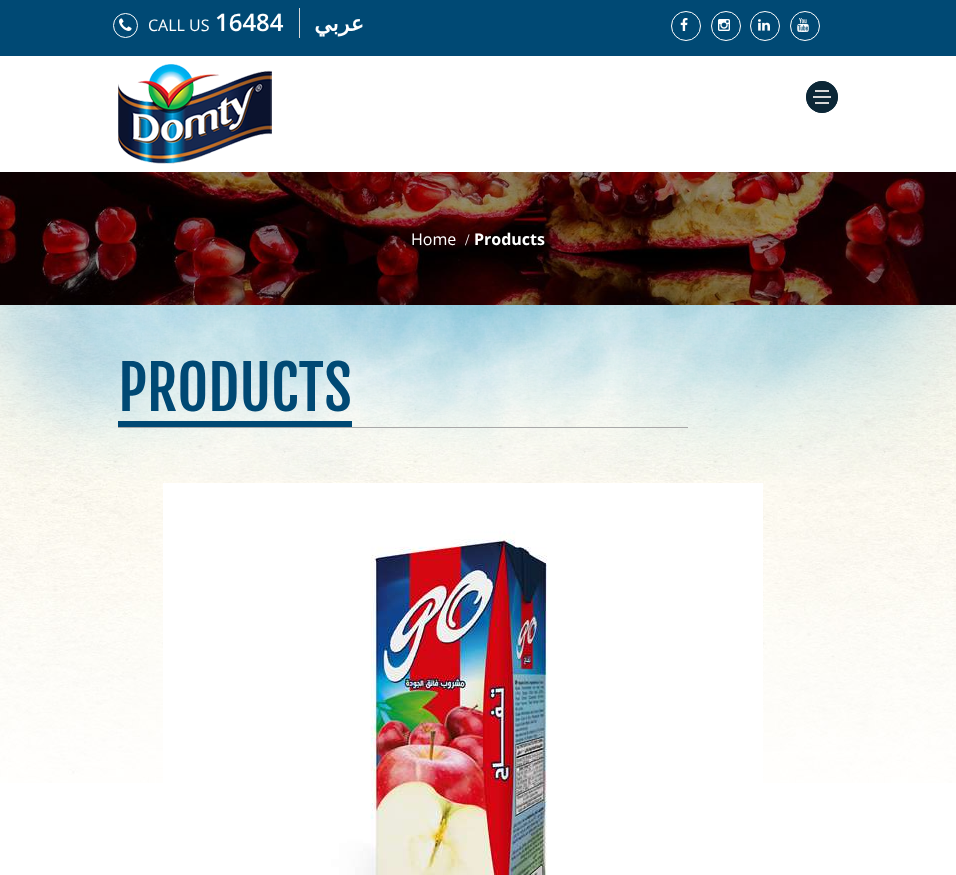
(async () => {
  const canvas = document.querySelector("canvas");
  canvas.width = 956;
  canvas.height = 875;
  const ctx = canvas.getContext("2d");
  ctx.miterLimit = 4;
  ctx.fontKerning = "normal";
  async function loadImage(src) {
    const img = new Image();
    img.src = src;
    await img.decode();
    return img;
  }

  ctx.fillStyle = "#ffffff";
  ctx.fillRect(0, 0, 956, 875);
  ctx.fillStyle = "#004974";
  ctx.fillRect(0, 0, 956, 56);
  ctx.fillStyle = "#d8d8d8";
  ctx.fillRect(299, 8, 1, 30);
  ctx.beginPath();
  ctx.arc(125.5, 25.5, 12, 0, Math.PI * 2);
  ctx.strokeStyle = "#ffffff";
  ctx.stroke();
  ctx.drawImage(await loadImage("img/1.png"), 119, 18, 13, 13);
  ctx.beginPath();
  ctx.arc(686, 26, 14.5, 0, Math.PI * 2);
  ctx.stroke();
  ctx.drawImage(await loadImage("img/2.png"), 680, 18, 8, 13);
  ctx.beginPath();
  ctx.arc(726, 26, 14.5, 0, Math.PI * 2);
  ctx.stroke();
  ctx.drawImage(await loadImage("img/3.png"), 718, 19, 12, 12);
  ctx.beginPath();
  ctx.arc(765, 26, 14.5, 0, Math.PI * 2);
  ctx.stroke();
  ctx.drawImage(await loadImage("img/4.png"), 758, 19, 12, 12);
  ctx.beginPath();
  ctx.arc(805, 26, 14.5, 0, Math.PI * 2);
  ctx.stroke();
  ctx.drawImage(await loadImage("img/5.png"), 797, 18, 12, 14);
  ctx.drawImage(await loadImage("img/6.png"), 118, 64, 154, 100);
  ctx.fillStyle = "#0c2737";
  ctx.beginPath();
  ctx.arc(822, 97, 16, 0, Math.PI * 2);
  ctx.fill();
  ctx.drawImage(await loadImage("img/7.png"), 813, 90, 18, 14);
  ctx.beginPath();
  ctx.arc(822, 97, 15.5, 0, Math.PI * 2);
  ctx.strokeStyle = "#0c2737";
  ctx.stroke();
  ctx.drawImage(await loadImage("img/8.png"), 0, 172, 956, 133);
  ctx.drawImage(await loadImage("img/9.png"), 0, 305, 956, 478);
  ctx.drawImage(await loadImage("img/10.png"), 0, 305, 956, 175);
  ctx.fillStyle = "#a8a8a8";
  ctx.fillRect(118, 427, 570, 1);
  ctx.fillStyle = "#004974";
  ctx.fillRect(118, 421, 234, 6);
  ctx.drawImage(await loadImage("img/11.png"), 163, 483, 600, 392);
  ctx.font = "16px Open Sans";
  ctx.fillStyle = "#ffffff";
  ctx.fillText("CALL US", 148, 31);
  ctx.font = "600 24px Open Sans";
  ctx.fillText("16484", 215, 31);
  ctx.direction = "rtl";
  ctx.font = "bold 22px DejaVu Sans";
  ctx.fillText("عربي", 364, 31);
  ctx.direction = "ltr";
  ctx.font = "16px Open Sans";
  ctx.fillText("Home", 411, 245);
  ctx.font = "16px Liberation Serif";
  ctx.fillText("/", 465, 245);
  ctx.font = "bold 16px Open Sans";
  ctx.fillText("Products", 474, 245);
  ctx.font = "60px Fjalla One";
  ctx.fillStyle = "#004974";
  ctx.fillText("PRODUCTS", 118, 411);
})();
